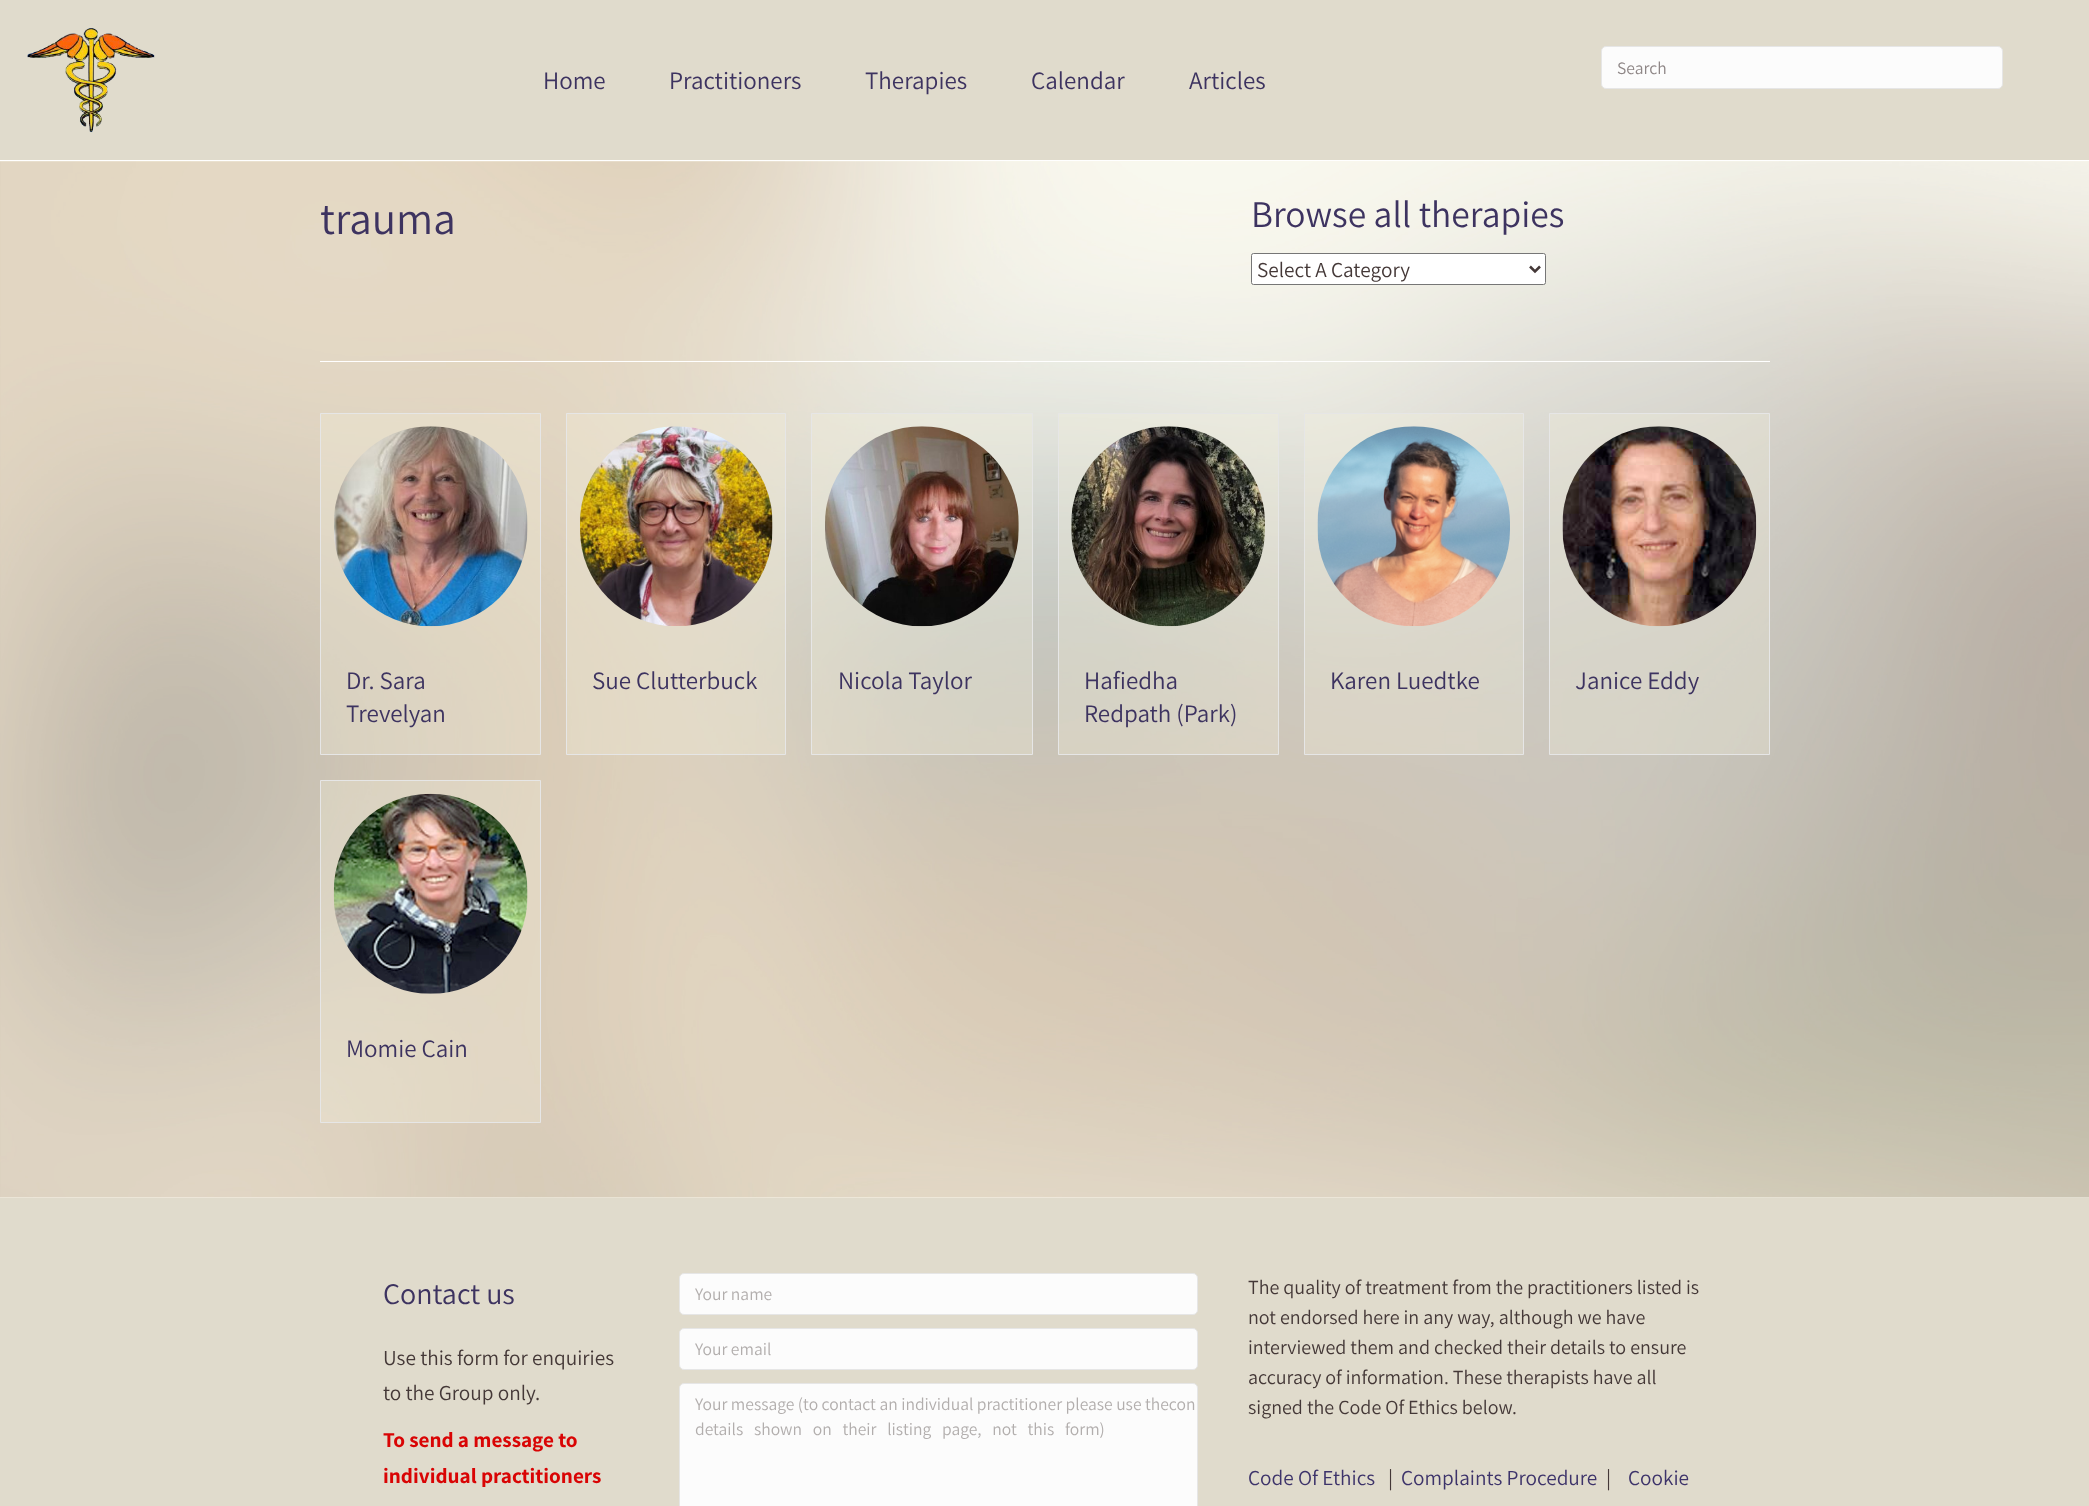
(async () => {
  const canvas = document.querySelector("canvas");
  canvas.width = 2089;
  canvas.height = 1506;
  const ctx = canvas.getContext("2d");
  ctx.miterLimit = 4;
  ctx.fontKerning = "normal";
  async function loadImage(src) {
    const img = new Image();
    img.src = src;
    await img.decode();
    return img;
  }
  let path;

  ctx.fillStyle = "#faf9ef";
  ctx.fillRect(0, 0, 2089, 1506);
  ctx.fillStyle = "#ffffff";
  ctx.fillRect(0, 160, 2089, 1);
  ctx.fillStyle = "#e0dbcc";
  ctx.fillRect(0, 0, 2089, 160);
  ctx.drawImage(await loadImage("img/1.png"), 27, 28, 128, 105);
  ctx.fillStyle = "#fcfcfc";
  ctx.beginPath();
  ctx.roundRect(1601.5, 46.5, 401, 42, 4.5);
  ctx.fill();
  ctx.strokeStyle = "#e6e6e6";
  ctx.stroke();
  ctx.drawImage(await loadImage("img/2.png"), 0, 161, 2089, 1037);
  ctx.fillStyle = "#ffffff";
  ctx.beginPath();
  ctx.roundRect(1251.5, 253.5, 294, 31, 2);
  ctx.fill();
  ctx.strokeStyle = "#767676";
  ctx.stroke();
  path = new Path2D("M1530 266.5L1535 271.5L1540 266.5");
  ctx.strokeStyle = "#443837";
  ctx.lineWidth = 2.5;
  ctx.stroke(path);
  ctx.fillRect(320, 361, 1450, 1);
  ctx.fillStyle = "rgba(244, 242, 222, 0.3)";
  ctx.beginPath();
  ctx.rect(320.5, 413.5, 220, 341);
  ctx.fill();
  ctx.strokeStyle = "#e6e6e6";
  ctx.lineWidth = 1;
  ctx.stroke();
  ctx.drawImage(await loadImage("img/3.png"), 334, 426, 194, 201);
  ctx.beginPath();
  ctx.rect(566.5, 413.5, 219, 341);
  ctx.fill();
  ctx.stroke();
  ctx.drawImage(await loadImage("img/4.png"), 580, 426, 193, 200);
  ctx.beginPath();
  ctx.rect(811.5, 413.5, 221, 341);
  ctx.fill();
  ctx.stroke();
  ctx.drawImage(await loadImage("img/5.png"), 825, 426, 194, 201);
  ctx.beginPath();
  ctx.rect(1058.5, 413.5, 220, 341);
  ctx.fill();
  ctx.stroke();
  ctx.drawImage(await loadImage("img/6.png"), 1071, 426, 194, 201);
  ctx.beginPath();
  ctx.rect(1304.5, 413.5, 219, 341);
  ctx.fill();
  ctx.stroke();
  ctx.drawImage(await loadImage("img/7.png"), 1317, 426, 193, 200);
  ctx.beginPath();
  ctx.rect(1549.5, 413.5, 220, 341);
  ctx.fill();
  ctx.stroke();
  ctx.drawImage(await loadImage("img/8.png"), 1562, 426, 195, 201);
  ctx.beginPath();
  ctx.rect(320.5, 780.5, 220, 342);
  ctx.fill();
  ctx.stroke();
  ctx.drawImage(await loadImage("img/9.png"), 333, 793, 195, 201);
  ctx.fillStyle = "#e0dbcc";
  ctx.fillRect(0, 1198, 2089, 308);
  ctx.fillStyle = "#fcfcfc";
  ctx.beginPath();
  ctx.roundRect(679.5, 1273.5, 518, 41, 4.5);
  ctx.fill();
  ctx.stroke();
  ctx.beginPath();
  ctx.roundRect(679.5, 1328.5, 518, 41, 4.5);
  ctx.fill();
  ctx.stroke();
  ctx.beginPath();
  ctx.roundRect(679.5, 1383.5, 518, 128, 4.5);
  ctx.fill();
  ctx.stroke();
  ctx.font = "17.5px Assistant";
  ctx.fillStyle = "#8e8686";
  ctx.fillText("Search", 1617, 74);
  ctx.font = "25px Assistant";
  ctx.fillStyle = "#3d3360";
  for (const [text, x, y] of [
    ["Home", 543, 89],
    ["Practitioners", 669, 89],
    ["Therapies", 865, 89],
    ["Calendar", 1031, 89],
    ["Articles", 1189, 89],
  ]) {
    ctx.fillText(text, x, y);
  }
  ctx.font = "45px Assistant";
  ctx.fillText("trauma", 320, 234);
  ctx.font = "37.5px Assistant";
  ctx.fillText("Browse all therapies", 1251, 227);
  ctx.font = "21.25px Assistant";
  ctx.fillStyle = "#443837";
  ctx.fillText("Select A Category", 1257, 277);
  ctx.font = "25px Assistant";
  ctx.fillStyle = "#3d3360";
  for (const [text, x, y] of [
    ["Dr. Sara", 346, 689],
    ["Trevelyan", 346, 722],
    ["Sue Clutterbuck", 592, 689],
    ["Nicola Taylor", 838, 689],
    ["Hafiedha", 1084, 689],
    ["Redpath (Park)", 1084, 722],
    ["Karen Luedtke", 1330, 689],
    ["Janice Eddy", 1575, 689],
    ["Momie Cain", 346, 1057],
  ]) {
    ctx.fillText(text, x, y);
  }
  ctx.font = "30px Assistant";
  ctx.fillText("Contact us", 383, 1304);
  ctx.font = "21.25px Assistant";
  ctx.fillStyle = "#443837";
  ctx.fillText("Use this form for enquiries", 383, 1365);
  ctx.fillText("to the Group only.", 383, 1400);
  ctx.font = "bold 21.25px Assistant";
  ctx.fillStyle = "#d90404";
  ctx.fillText("To send a message to", 383, 1447);
  ctx.fillText("individual practitioners", 383, 1483);
  ctx.font = "17.5px Assistant";
  ctx.fillStyle = "#b2aead";
  for (const [text, x, y] of [
    ["Your name", 695, 1300],
    ["Your email", 695, 1355],
    ["Your message (to contact an individual practitioner please use thecon", 695, 1410],
  ]) {
    ctx.fillText(text, x, y);
  }
  ctx.wordSpacing = "7.25px";
  ctx.fillText("details shown on their listing page, not this form)", 695, 1435);
  ctx.wordSpacing = "0px";
  ctx.font = "20px Assistant";
  ctx.fillStyle = "#443837";
  for (const [text, x, y] of [
    ["The quality of treatment from the practitioners listed is", 1248, 1294],
    ["not endorsed here in any way, although we have", 1248, 1324],
    ["interviewed them and checked their details to ensure", 1248, 1354],
    ["accuracy of information. These therapists have all", 1248, 1384],
    ["signed the Code Of Ethics below.", 1248, 1414],
  ]) {
    ctx.fillText(text, x, y);
  }
  ctx.font = "21.25px Assistant";
  ctx.fillStyle = "#3d336a";
  ctx.fillText("Code Of Ethics", 1248, 1485);
  ctx.fillStyle = "#443837";
  ctx.fillText("|", 1388, 1485);
  ctx.fillStyle = "#3d336a";
  ctx.fillText("Complaints Procedure", 1401, 1485);
  ctx.fillStyle = "#443837";
  ctx.fillText("|", 1606, 1485);
  ctx.fillStyle = "#3d336a";
  ctx.fillText("Cookie", 1628, 1485);
})();
